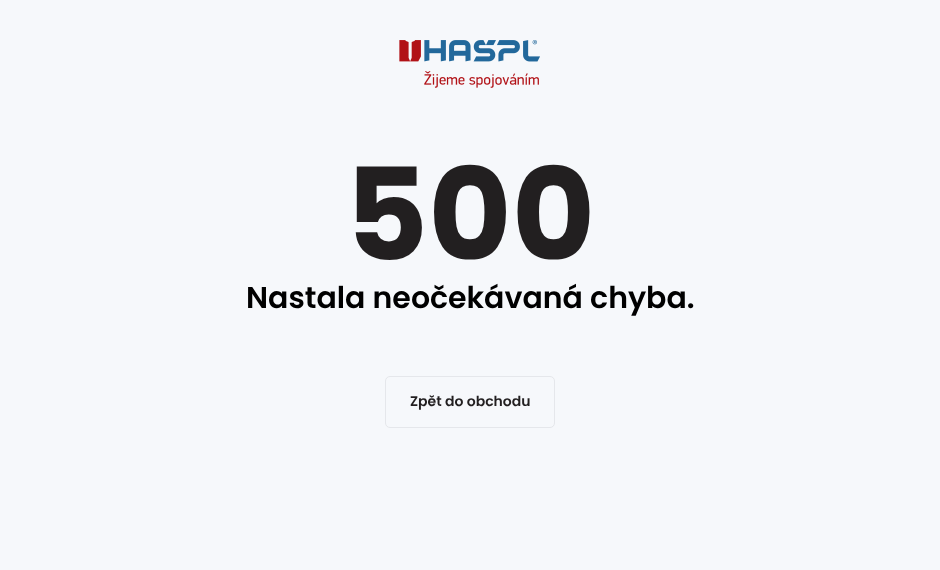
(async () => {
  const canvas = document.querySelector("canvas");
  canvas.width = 940;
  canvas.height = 570;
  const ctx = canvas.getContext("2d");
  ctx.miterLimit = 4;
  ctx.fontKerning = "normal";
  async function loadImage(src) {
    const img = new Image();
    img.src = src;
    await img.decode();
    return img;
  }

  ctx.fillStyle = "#f6f8fb";
  ctx.fillRect(0, 0, 940, 570);
  ctx.drawImage(await loadImage("img/1.png"), 399, 40, 141, 48);
  ctx.beginPath();
  ctx.roundRect(385.5, 376.5, 169, 51, 4.5);
  ctx.strokeStyle = "#e5e7eb";
  ctx.stroke();
  ctx.font = "bold 128px Poppins";
  ctx.fillStyle = "#221f20";
  ctx.fillText("500", 345, 260);
  ctx.font = "600 30px Poppins";
  ctx.fillStyle = "#000000";
  ctx.fillText("Nastala neočekávaná chyba.", 246, 308);
  ctx.font = "600 14px Poppins";
  ctx.fillStyle = "#221f20";
  ctx.fillText("Zpět do obchodu", 410, 406);
})();
